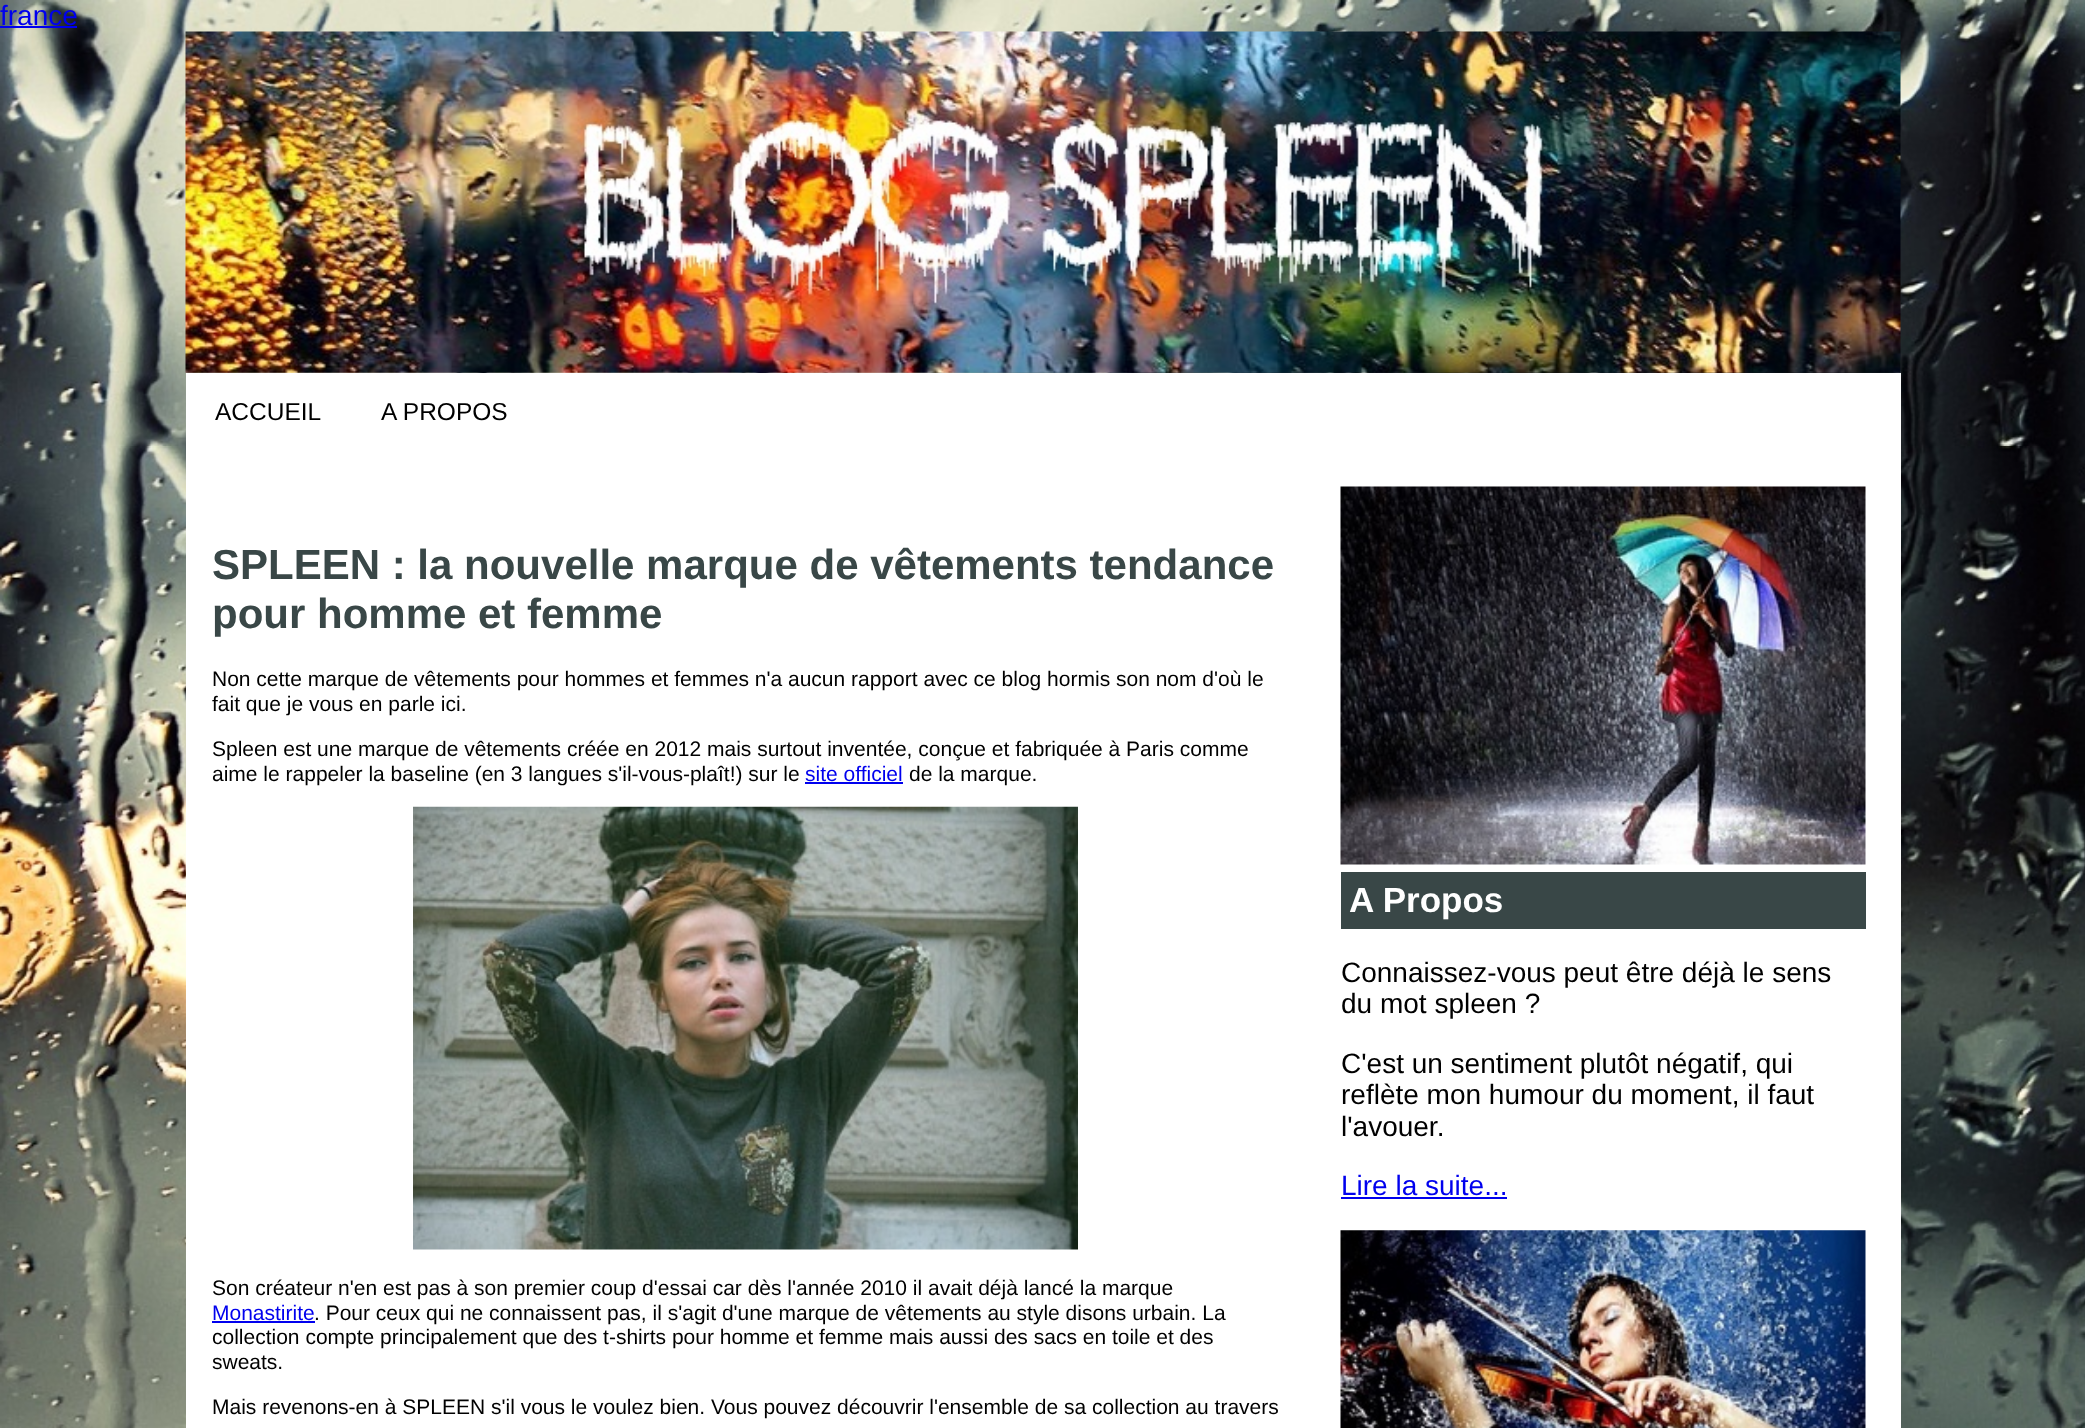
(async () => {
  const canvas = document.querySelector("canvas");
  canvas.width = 2085;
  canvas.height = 1428;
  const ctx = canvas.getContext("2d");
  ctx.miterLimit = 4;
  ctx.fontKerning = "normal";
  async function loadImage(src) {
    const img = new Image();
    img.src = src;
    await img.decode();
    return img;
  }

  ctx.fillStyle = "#ffffff";
  ctx.fillRect(0, 0, 2085, 1428);
  ctx.drawImage(await loadImage("img/1.png"), 0, 0, 2085, 1428);
  ctx.fillStyle = "#0000ee";
  ctx.fillRect(0, 26, 77, 2);
  ctx.drawImage(await loadImage("img/2.png"), 185, 31, 1716, 342);
  ctx.fillStyle = "#ffffff";
  ctx.fillRect(186, 373, 1715, 1055);
  ctx.fillStyle = "#0000ee";
  ctx.fillRect(805, 782, 98, 2);
  ctx.drawImage(await loadImage("img/3.png"), 413, 806, 665, 444);
  ctx.fillRect(212, 1321, 103, 2);
  ctx.drawImage(await loadImage("img/4.png"), 1340, 486, 526, 379);
  ctx.fillStyle = "#394747";
  ctx.fillRect(1341, 872, 525, 57);
  ctx.fillStyle = "#0000ee";
  ctx.fillRect(1341, 1197, 166, 2);
  ctx.drawImage(await loadImage("img/5.png"), 1340, 1230, 526, 198);
  ctx.font = "28px Liberation Sans";
  ctx.fillText("france", 0, 25);
  ctx.font = "24.5px Liberation Sans";
  ctx.fillStyle = "#000000";
  ctx.fillText("ACCUEIL", 215, 420);
  ctx.fillText("A PROPOS", 381, 420);
  ctx.font = "bold 42px Liberation Sans";
  ctx.fillStyle = "#394747";
  ctx.fillText("SPLEEN : la nouvelle marque de vêtements tendance", 212, 579);
  ctx.fillText("pour homme et femme", 212, 628);
  ctx.font = "21px Liberation Sans";
  ctx.fillStyle = "#000000";
  for (const [text, x, y] of [
    ["Non cette marque de vêtements pour hommes et femmes n'a aucun rapport avec ce blog hormis son nom d'où le", 212, 686],
    ["fait que je vous en parle ici.", 212, 711],
    ["Spleen est une marque de vêtements créée en 2012 mais surtout inventée, conçue et fabriquée à Paris comme", 212, 756],
    ["aime le rappeler la baseline (en 3 langues s'il-vous-plaît!) sur le", 212, 781],
  ]) {
    ctx.fillText(text, x, y);
  }
  ctx.fillStyle = "#0000ee";
  ctx.fillText("site officiel", 805, 781);
  ctx.fillStyle = "#000000";
  ctx.fillText("de la marque.", 909, 781);
  ctx.fillText("Son créateur n'en est pas à son premier coup d'essai car dès l'année 2010 il avait déjà lancé la marque", 212, 1295);
  ctx.fillStyle = "#0000ee";
  ctx.fillText("Monastirite", 212, 1320);
  ctx.fillStyle = "#000000";
  for (const [text, x, y] of [
    [". Pour ceux qui ne connaissent pas, il s'agit d'une marque de vêtements au style disons urbain. La", 314, 1320],
    ["collection compte principalement que des t-shirts pour homme et femme mais aussi des sacs en toile et des", 212, 1344],
    ["sweats.", 212, 1369],
    ["Mais revenons-en à SPLEEN s'il vous le voulez bien. Vous pouvez découvrir l'ensemble de sa collection au travers", 212, 1414],
  ]) {
    ctx.fillText(text, x, y);
  }
  ctx.font = "bold 35px Liberation Sans";
  ctx.fillStyle = "#ffffff";
  ctx.fillText("A Propos", 1349, 912);
  ctx.font = "28px Liberation Sans";
  ctx.fillStyle = "#000000";
  for (const [text, x, y] of [
    ["Connaissez-vous peut être déjà le sens", 1341, 982],
    ["du mot spleen ?", 1341, 1013],
    ["C'est un sentiment plutôt négatif, qui", 1341, 1073],
    ["reflète mon humour du moment, il faut", 1341, 1104],
    ["l'avouer.", 1341, 1136],
  ]) {
    ctx.fillText(text, x, y);
  }
  ctx.fillStyle = "#0000ee";
  ctx.fillText("Lire la suite...", 1341, 1195);
})();
